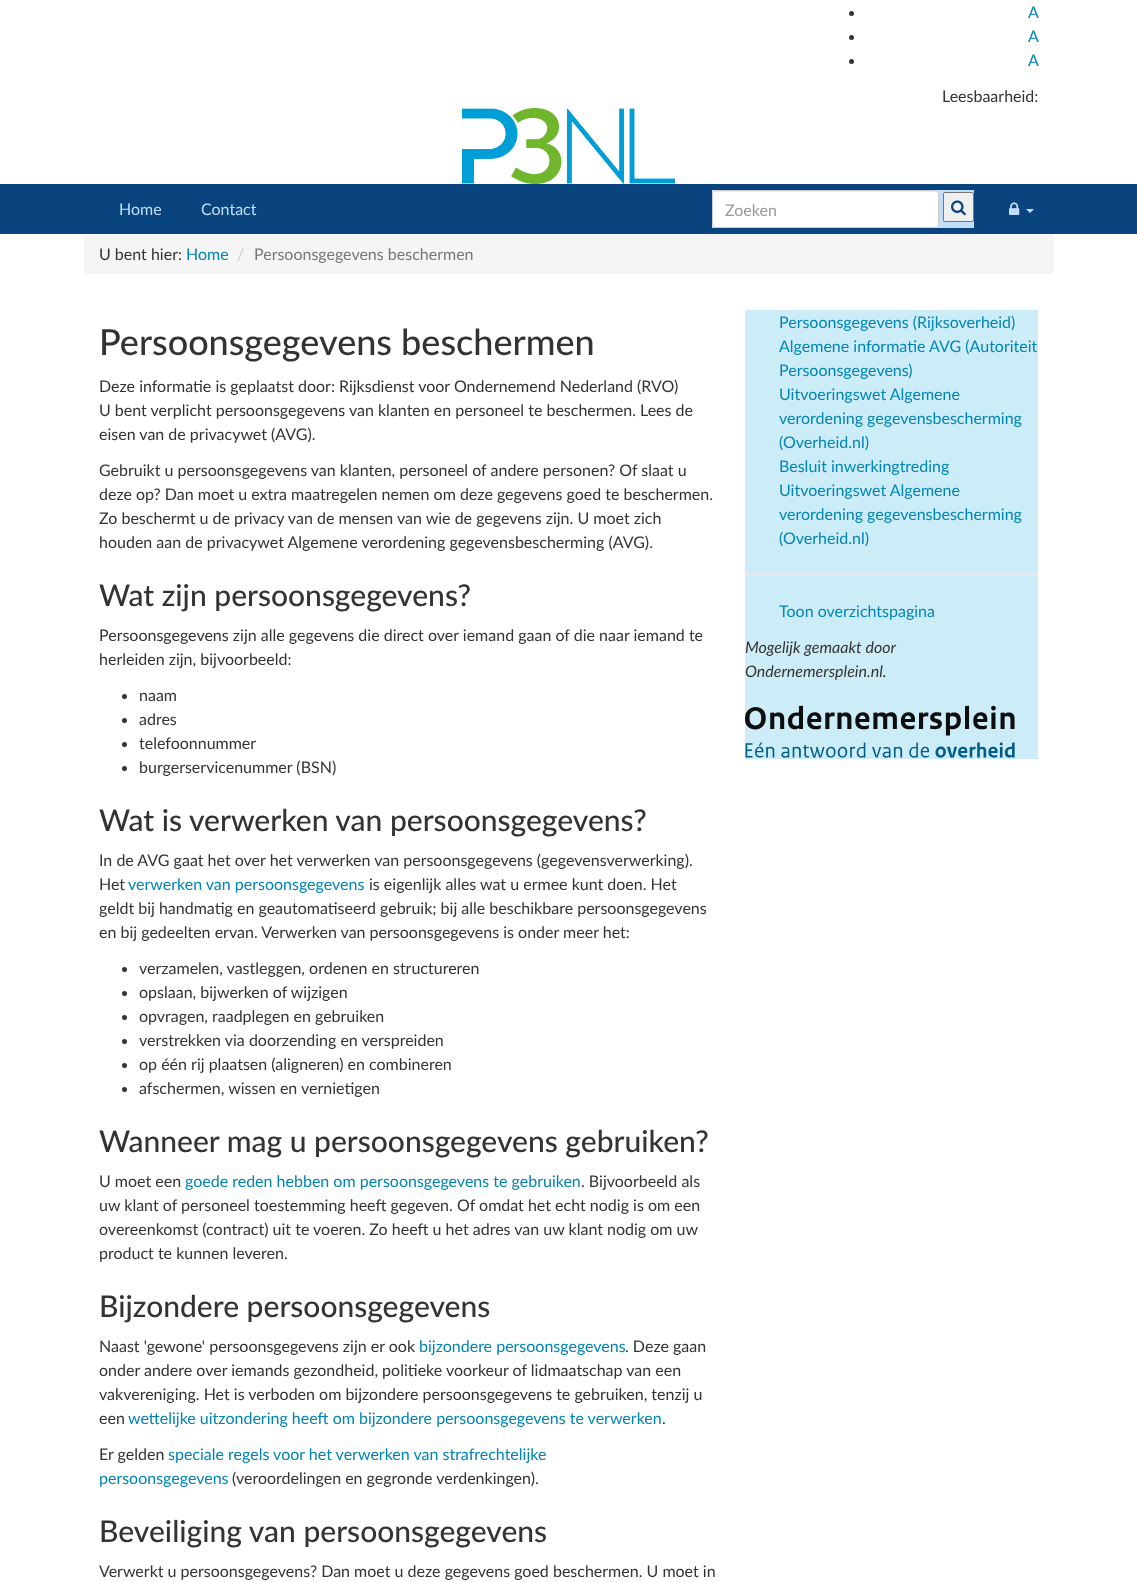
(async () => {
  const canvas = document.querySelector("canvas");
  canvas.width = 1137;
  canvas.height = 1582;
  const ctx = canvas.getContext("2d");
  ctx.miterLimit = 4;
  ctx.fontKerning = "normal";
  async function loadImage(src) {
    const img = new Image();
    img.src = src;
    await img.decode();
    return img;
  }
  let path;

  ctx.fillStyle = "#ffffff";
  ctx.fillRect(0, 0, 1137, 1582);
  ctx.fillStyle = "#333333";
  ctx.beginPath();
  ctx.arc(851.5, 13.5, 2.5, 0, Math.PI * 2);
  ctx.fill();
  ctx.beginPath();
  ctx.arc(851.5, 37.5, 2.5, 0, Math.PI * 2);
  ctx.fill();
  ctx.beginPath();
  ctx.arc(851.5, 61.5, 2.5, 0, Math.PI * 2);
  ctx.fill();
  ctx.drawImage(await loadImage("img/1.png"), 462, 108, 213, 76);
  ctx.fillStyle = "#0a447e";
  ctx.fillRect(0, 184, 1137, 50);
  ctx.fillStyle = "#c0ddfa";
  ctx.fillRect(712, 190, 262, 38);
  ctx.fillStyle = "#ffffff";
  ctx.beginPath();
  ctx.roundRect(712, 190, 227, 38, 4);
  ctx.fill();
  ctx.fillStyle = "#ececec";
  path = new Path2D("M716 192H935C937 192 938 193 938 195V194C938 192 937 191 935 191H716C714 191 713 192 713 194V195C713 193 714 192 716 192Z");
  ctx.fill(path);
  ctx.beginPath();
  ctx.roundRect(712.5, 190.5, 226, 37, 3.5);
  ctx.strokeStyle = "#cccccc";
  ctx.stroke();
  ctx.fillStyle = "#efefef";
  ctx.beginPath();
  ctx.roundRect(943.5, 192.5, 30, 29, 1.5);
  ctx.fill();
  ctx.strokeStyle = "#767676";
  ctx.stroke();
  ctx.drawImage(await loadImage("img/2.png"), 951, 200, 15, 16);
  ctx.drawImage(await loadImage("img/3.png"), 1009, 202, 11, 13);
  ctx.fillStyle = "#c0ddfa";
  path = new Path2D("M1026 209H1034L1030 213Z");
  ctx.fill(path);
  ctx.fillStyle = "#f5f5f5";
  ctx.beginPath();
  ctx.roundRect(84, 234, 970, 40, 4);
  ctx.fill();
  ctx.fillStyle = "#333333";
  ctx.beginPath();
  ctx.arc(124.5, 696.5, 2.5, 0, Math.PI * 2);
  ctx.fill();
  ctx.beginPath();
  ctx.arc(124.5, 720.5, 2.5, 0, Math.PI * 2);
  ctx.fill();
  ctx.beginPath();
  ctx.arc(124.5, 744.5, 2.5, 0, Math.PI * 2);
  ctx.fill();
  ctx.beginPath();
  ctx.arc(124.5, 768.5, 2.5, 0, Math.PI * 2);
  ctx.fill();
  ctx.beginPath();
  ctx.arc(124.5, 969.5, 2.5, 0, Math.PI * 2);
  ctx.fill();
  ctx.beginPath();
  ctx.arc(124.5, 993.5, 2.5, 0, Math.PI * 2);
  ctx.fill();
  ctx.beginPath();
  ctx.arc(124.5, 1017.5, 2.5, 0, Math.PI * 2);
  ctx.fill();
  ctx.beginPath();
  ctx.arc(124.5, 1041.5, 2.5, 0, Math.PI * 2);
  ctx.fill();
  ctx.beginPath();
  ctx.arc(124.5, 1065.5, 2.5, 0, Math.PI * 2);
  ctx.fill();
  ctx.beginPath();
  ctx.arc(124.5, 1089.5, 2.5, 0, Math.PI * 2);
  ctx.fill();
  ctx.fillStyle = "#ccecf7";
  ctx.fillRect(745, 310, 293, 449);
  ctx.fillStyle = "#eeeeee";
  ctx.fillRect(745, 574, 293, 1);
  ctx.drawImage(await loadImage("img/4.png"), 745, 705, 270, 53);
  ctx.font = "16px Lato";
  ctx.fillStyle = "#0086b6";
  for (const [text, x, y] of [
    ["A", 1028, 18],
    ["A", 1028, 42],
    ["A", 1028, 66],
  ]) {
    ctx.fillText(text, x, y);
  }
  ctx.fillStyle = "#333333";
  ctx.fillText("Leesbaarheid:", 942, 102);
  ctx.fillStyle = "#c0ddfa";
  ctx.fillText("Home", 119, 215);
  ctx.fillText("Contact", 201, 215);
  ctx.fillStyle = "#999999";
  ctx.fillText("Zoeken", 725, 216);
  ctx.fillStyle = "#333333";
  ctx.fillText("U bent hier:", 99, 260);
  ctx.fillStyle = "#0086b6";
  ctx.fillText("Home", 186, 260);
  ctx.fillStyle = "#cccccc";
  ctx.fillText("/", 237, 260);
  ctx.fillStyle = "#777777";
  ctx.fillText("Persoonsgegevens beschermen", 254, 260);
  ctx.font = "500 36px Lato";
  ctx.fillStyle = "#333333";
  ctx.fillText("Persoonsgegevens beschermen", 99, 355);
  ctx.font = "16px Lato";
  for (const [text, x, y] of [
    ["Deze informatie is geplaatst door: Rijksdienst voor Ondernemend Nederland (RVO)", 99, 392],
    ["U bent verplicht persoonsgegevens van klanten en personeel te beschermen. Lees de", 99, 416],
    ["eisen van de privacywet (AVG).", 99, 440],
    ["Gebruikt u persoonsgegevens van klanten, personeel of andere personen? Of slaat u", 99, 476],
    ["deze op? Dan moet u extra maatregelen nemen om deze gegevens goed te beschermen.", 99, 500],
    ["Zo beschermt u de privacy van de mensen van wie de gegevens zijn. U moet zich", 99, 524],
    ["houden aan de privacywet Algemene verordening gegevensbescherming (AVG).", 99, 548],
  ]) {
    ctx.fillText(text, x, y);
  }
  ctx.font = "500 30px Lato";
  ctx.fillText("Wat zijn persoonsgegevens?", 99, 606);
  ctx.font = "16px Lato";
  for (const [text, x, y] of [
    ["Persoonsgegevens zijn alle gegevens die direct over iemand gaan of die naar iemand te", 99, 641],
    ["herleiden zijn, bijvoorbeeld:", 99, 665],
    ["naam", 139, 701],
    ["adres", 139, 725],
    ["telefoonnummer", 139, 749],
    ["burgerservicenummer (BSN)", 139, 773],
  ]) {
    ctx.fillText(text, x, y);
  }
  ctx.font = "500 30px Lato";
  ctx.fillText("Wat is verwerken van persoonsgegevens?", 99, 831);
  ctx.font = "16px Lato";
  ctx.fillText("In de AVG gaat het over het verwerken van persoonsgegevens (gegevensverwerking).", 99, 866);
  ctx.fillText("Het", 99, 890);
  ctx.fillStyle = "#0086b6";
  ctx.fillText("verwerken van persoonsgegevens", 128, 890);
  ctx.fillStyle = "#333333";
  for (const [text, x, y] of [
    ["is eigenlijk alles wat u ermee kunt doen. Het", 369, 890],
    ["geldt bij handmatig en geautomatiseerd gebruik; bij alle beschikbare persoonsgegevens", 99, 914],
    ["en bij gedeelten ervan. Verwerken van persoonsgegevens is onder meer het:", 99, 938],
    ["verzamelen, vastleggen, ordenen en structureren", 139, 974],
    ["opslaan, bijwerken of wijzigen", 139, 998],
    ["opvragen, raadplegen en gebruiken", 139, 1022],
    ["verstrekken via doorzending en verspreiden", 139, 1046],
    ["op één rij plaatsen (aligneren) en combineren", 139, 1070],
    ["afschermen, wissen en vernietigen", 139, 1094],
  ]) {
    ctx.fillText(text, x, y);
  }
  ctx.font = "500 30px Lato";
  ctx.fillText("Wanneer mag u persoonsgegevens gebruiken?", 99, 1152);
  ctx.font = "16px Lato";
  ctx.fillText("U moet een", 99, 1187);
  ctx.fillStyle = "#0086b6";
  ctx.fillText("goede reden hebben om persoonsgegevens te gebruiken", 185, 1187);
  ctx.fillStyle = "#333333";
  for (const [text, x, y] of [
    [". Bijvoorbeeld als", 581, 1187],
    ["uw klant of personeel toestemming heeft gegeven. Of omdat het echt nodig is om een", 99, 1211],
    ["overeenkomst (contract) uit te voeren. Zo heeft u het adres van uw klant nodig om uw", 99, 1235],
    ["product te kunnen leveren.", 99, 1259],
  ]) {
    ctx.fillText(text, x, y);
  }
  ctx.font = "500 30px Lato";
  ctx.fillText("Bijzondere persoonsgegevens", 99, 1317);
  ctx.font = "16px Lato";
  ctx.fillText("Naast 'gewone' persoonsgegevens zijn er ook", 99, 1352);
  ctx.fillStyle = "#0086b6";
  ctx.fillText("bijzondere persoonsgegevens", 419, 1352);
  ctx.fillStyle = "#333333";
  for (const [text, x, y] of [
    [". Deze gaan", 625, 1352],
    ["onder andere over iemands gezondheid, politieke voorkeur of lidmaatschap van een", 99, 1376],
    ["vakvereniging. Het is verboden om bijzondere persoonsgegevens te gebruiken, tenzij u", 99, 1400],
    ["een", 99, 1424],
  ]) {
    ctx.fillText(text, x, y);
  }
  ctx.fillStyle = "#0086b6";
  ctx.fillText("wettelijke uitzondering heeft om bijzondere persoonsgegevens te verwerken", 128, 1424);
  ctx.fillStyle = "#333333";
  ctx.fillText(".", 662, 1424);
  ctx.fillText("Er gelden", 99, 1460);
  ctx.fillStyle = "#0086b6";
  ctx.fillText("speciale regels voor het verwerken van strafrechtelijke", 168, 1460);
  ctx.fillText("persoonsgegevens", 99, 1484);
  ctx.fillStyle = "#333333";
  ctx.fillText("(veroordelingen en gegronde verdenkingen).", 232, 1484);
  ctx.font = "500 30px Lato";
  ctx.fillText("Beveiliging van persoonsgegevens", 99, 1542);
  ctx.font = "16px Lato";
  ctx.fillText("Verwerkt u persoonsgegevens? Dan moet u deze gegevens goed beschermen. U moet in", 99, 1577);
  ctx.fillStyle = "#0086b6";
  for (const [text, x, y] of [
    ["Persoonsgegevens (Rijksoverheid)", 779, 328],
    ["Algemene informatie AVG (Autoriteit", 779, 352],
    ["Persoonsgegevens)", 779, 376],
    ["Uitvoeringswet Algemene", 779, 400],
    ["verordening gegevensbescherming", 779, 424],
    ["(Overheid.nl)", 779, 448],
    ["Besluit inwerkingtreding", 779, 472],
    ["Uitvoeringswet Algemene", 779, 496],
    ["verordening gegevensbescherming", 779, 520],
    ["(Overheid.nl)", 779, 544],
    ["Toon overzichtspagina", 779, 617],
  ]) {
    ctx.fillText(text, x, y);
  }
  ctx.font = "italic 16px Lato";
  ctx.fillStyle = "#333333";
  ctx.fillText("Mogelijk gemaakt door", 745, 653);
  ctx.fillText("Ondernemersplein.nl.", 745, 677);
})();
